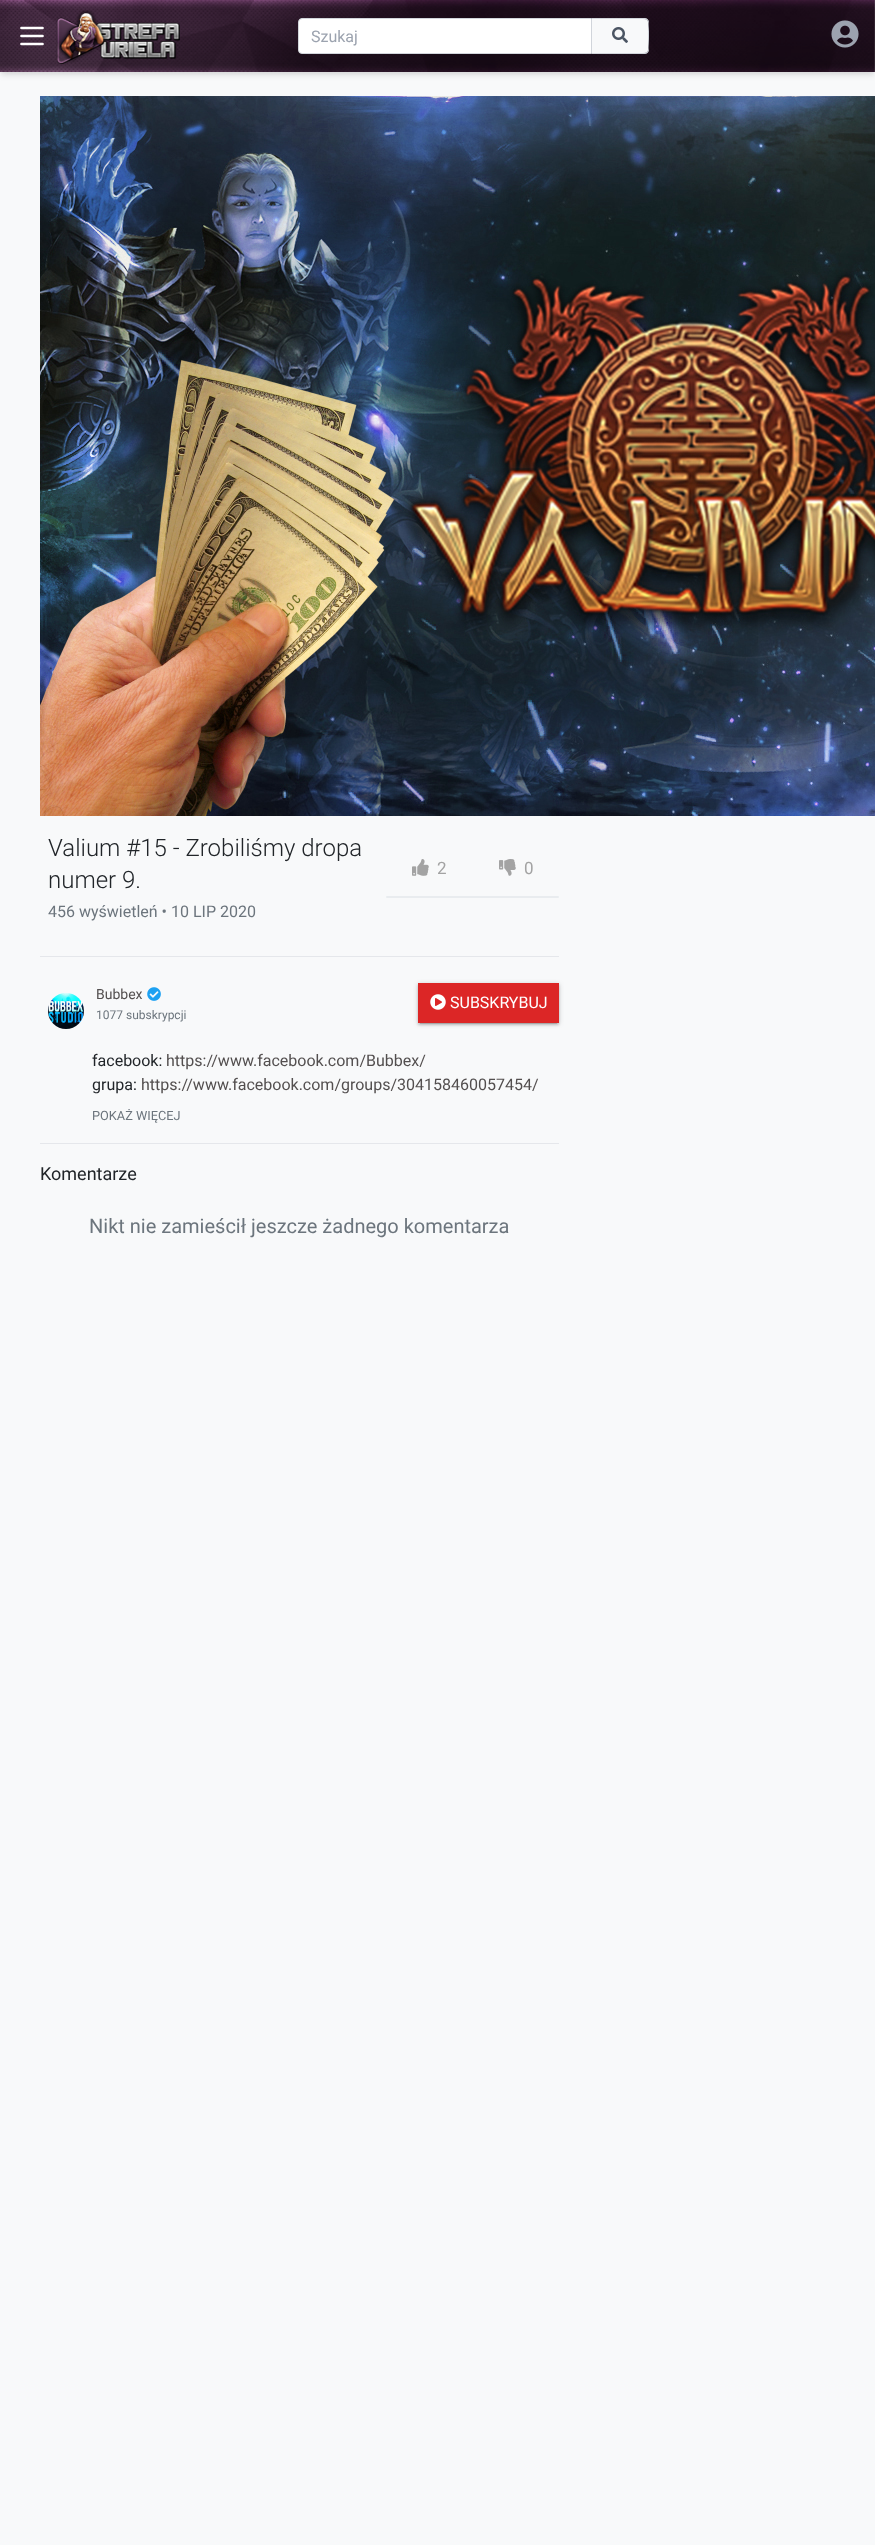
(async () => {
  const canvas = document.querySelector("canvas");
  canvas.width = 875;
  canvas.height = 2545;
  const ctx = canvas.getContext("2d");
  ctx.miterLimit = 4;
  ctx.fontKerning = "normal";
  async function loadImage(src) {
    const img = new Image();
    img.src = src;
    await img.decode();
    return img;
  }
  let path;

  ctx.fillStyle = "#f8f9fa";
  ctx.fillRect(0, 0, 875, 2545);
  ctx.fillStyle = "rgba(0, 0, 0, 0.06)";
  ctx.filter = "blur(2px)";
  ctx.beginPath();
  ctx.rect(1, 3, 873, 70);
  ctx.fill();
  ctx.filter = "none";
  ctx.fillStyle = "rgba(0, 0, 0, 0.1)";
  ctx.filter = "blur(3px)";
  ctx.beginPath();
  ctx.rect(1, 5, 873, 70);
  ctx.fill();
  ctx.filter = "none";
  ctx.drawImage(await loadImage("img/1.png"), 0, 0, 875, 72);
  path = new Path2D("M21.5 28H42.5M21.5 36H42.5M21.5 44H42.5");
  ctx.strokeStyle = "#ffffff";
  ctx.lineWidth = 2.7;
  ctx.lineCap = "round";
  ctx.lineJoin = "round";
  ctx.stroke(path);
  ctx.drawImage(await loadImage("img/2.png"), 56, 10, 124, 54);
  ctx.fillStyle = "#ffffff";
  ctx.beginPath();
  ctx.roundRect(298.5, 18.5, 293, 35, [3.5, 0, 0, 3.5]);
  ctx.fill();
  ctx.strokeStyle = "#d1d5db";
  ctx.lineWidth = 1;
  ctx.lineJoin = "miter";
  ctx.stroke();
  ctx.fillStyle = "#f8f9fa";
  ctx.beginPath();
  ctx.roundRect(592, 19, 56, 34, [0, 3, 3, 0]);
  ctx.fill();
  ctx.fillStyle = "#d1d5db";
  path = new Path2D("M592 18H645C647 18 649 20 649 22V50C649 52 647 54 645 54H592ZM592 19H636C652 19 648 19 648 36C648 53 652 53 636 53H592Z");
  ctx.fill(path, "evenodd");
  ctx.drawImage(await loadImage("img/3.png"), 612, 27, 16, 16);
  ctx.drawImage(await loadImage("img/4.png"), 831, 20, 28, 28);
  ctx.drawImage(await loadImage("img/5.png"), 40, 96, 835, 720);
  ctx.drawImage(await loadImage("img/6.png"), 412, 859, 17, 17);
  ctx.drawImage(await loadImage("img/7.png"), 499, 859, 17, 17);
  ctx.fillStyle = "#e9ecef";
  ctx.beginPath();
  ctx.roundRect(386, 896, 173, 2, 1);
  ctx.fill();
  ctx.fillStyle = "#e5e7eb";
  ctx.fillRect(40, 956, 519, 1);
  ctx.drawImage(await loadImage("img/8.png"), 48, 993, 36, 36);
  ctx.drawImage(await loadImage("img/9.png"), 147, 987, 14, 14);
  ctx.fillStyle = "rgba(0, 0, 0, 0.2)";
  ctx.filter = "blur(2.5px)";
  ctx.beginPath();
  ctx.rect(418, 984, 141, 40);
  ctx.fill();
  ctx.filter = "none";
  ctx.fillStyle = "rgba(0, 0, 0, 0.12)";
  ctx.filter = "blur(0.5px)";
  ctx.beginPath();
  ctx.rect(420, 988, 137, 36);
  ctx.fill();
  ctx.filter = "none";
  ctx.fillStyle = "rgba(0, 0, 0, 0.14)";
  ctx.filter = "blur(1px)";
  ctx.beginPath();
  ctx.rect(418, 985, 141, 40);
  ctx.fill();
  ctx.filter = "none";
  ctx.fillStyle = "#dc2626";
  ctx.fillRect(418, 983, 141, 40);
  ctx.drawImage(await loadImage("img/10.png"), 430, 994, 16, 16);
  ctx.fillStyle = "#e5e7eb";
  ctx.fillRect(40, 1143, 519, 1);
  ctx.font = "16px Roboto";
  ctx.fillStyle = "#9ca3af";
  ctx.fillText("Szukaj", 311, 42);
  ctx.font = "300 24px Roboto";
  ctx.fillStyle = "#212529";
  ctx.fillText("Valium #15 - Zrobiliśmy dropa", 48, 856);
  ctx.fillText("numer 9.", 48, 888);
  ctx.font = "16px Roboto";
  ctx.fillStyle = "#6c757d";
  ctx.fillText("456 wyświetleń • 10 LIP 2020", 48, 917);
  ctx.font = "17px Roboto";
  ctx.fillStyle = "#a3a3a3";
  ctx.fillText("2", 437, 874);
  ctx.fillText("0", 524, 874);
  ctx.font = "14px Roboto";
  ctx.fillStyle = "#534f4f";
  ctx.fillText("Bubbex", 96, 999);
  ctx.font = "12px Roboto";
  ctx.fillStyle = "#6c757d";
  ctx.fillText("1077 subskrypcji", 96, 1019);
  ctx.font = "16px Roboto";
  ctx.fillStyle = "#ffffff";
  ctx.fillText("SUBSKRYBUJ", 450, 1008);
  ctx.fillStyle = "#212529";
  ctx.fillText("facebook:", 92, 1066);
  ctx.fillStyle = "#534f4f";
  ctx.fillText("https://www.facebook.com/Bubbex/", 166, 1066);
  ctx.fillStyle = "#212529";
  ctx.fillText("grupa:", 92, 1090);
  ctx.fillStyle = "#534f4f";
  ctx.fillText("https://www.facebook.com/groups/304158460057454/", 141, 1090);
  ctx.font = "12.75px Roboto";
  ctx.fillStyle = "#6c757d";
  ctx.fillText("POKAŻ WIĘCEJ", 92, 1120);
  ctx.font = "18px Roboto";
  ctx.fillStyle = "#212529";
  ctx.fillText("Komentarze", 40, 1180);
  ctx.font = "20px Roboto";
  ctx.fillStyle = "#6c757d";
  ctx.fillText("Nikt nie zamieścił jeszcze żadnego komentarza", 89, 1233);
})();
